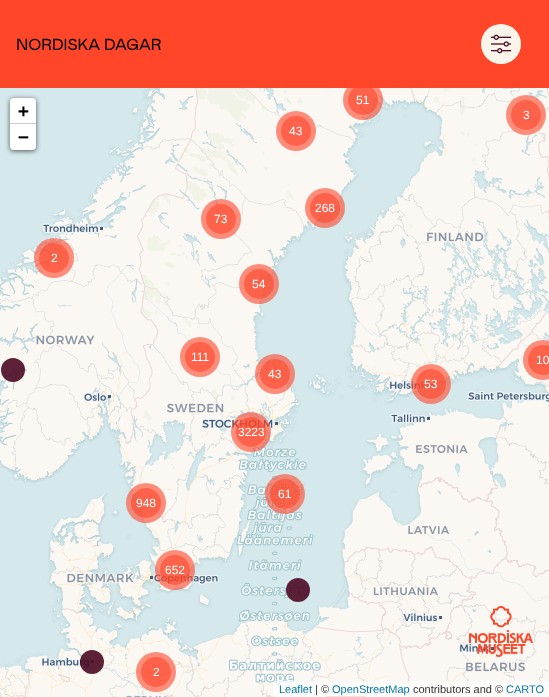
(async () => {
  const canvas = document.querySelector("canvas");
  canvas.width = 549;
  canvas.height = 697;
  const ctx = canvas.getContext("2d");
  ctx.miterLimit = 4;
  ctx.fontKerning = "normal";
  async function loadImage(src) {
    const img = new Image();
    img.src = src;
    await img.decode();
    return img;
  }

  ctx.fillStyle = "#ff4629";
  ctx.fillRect(0, 0, 549, 697);
  ctx.fillStyle = "#faf5eb";
  ctx.beginPath();
  ctx.arc(501, 44, 20, 0, Math.PI * 2);
  ctx.fill();
  ctx.drawImage(await loadImage("img/1.png"), 491, 34, 20, 20);
  ctx.drawImage(await loadImage("img/2.png"), 0, 88, 121, 230);
  ctx.drawImage(await loadImage("img/3.png"), 121, 88, 256, 230);
  ctx.drawImage(await loadImage("img/4.png"), 377, 88, 172, 230);
  ctx.drawImage(await loadImage("img/5.png"), 0, 318, 121, 256);
  ctx.drawImage(await loadImage("img/6.png"), 121, 318, 256, 256);
  ctx.drawImage(await loadImage("img/7.png"), 377, 318, 172, 256);
  ctx.drawImage(await loadImage("img/8.png"), 0, 574, 121, 123);
  ctx.drawImage(await loadImage("img/9.png"), 121, 574, 256, 123);
  ctx.drawImage(await loadImage("img/10.png"), 377, 574, 172, 123);
  ctx.save();
  ctx.beginPath();
  ctx.rect(0, 88, 549, 609);
  ctx.clip();
  ctx.fillStyle = "rgba(255, 70, 41, 0.6)";
  ctx.beginPath();
  ctx.arc(363, 100, 20, 0, Math.PI * 2);
  ctx.fill();
  ctx.beginPath();
  ctx.arc(363, 100, 15, 0, Math.PI * 2);
  ctx.fill();
  ctx.restore();
  ctx.fillStyle = "rgba(255, 70, 41, 0.6)";
  ctx.beginPath();
  ctx.arc(526, 115, 20, 0, Math.PI * 2);
  ctx.fill();
  ctx.beginPath();
  ctx.arc(526, 115, 15, 0, Math.PI * 2);
  ctx.fill();
  ctx.beginPath();
  ctx.arc(296, 131, 20, 0, Math.PI * 2);
  ctx.fill();
  ctx.beginPath();
  ctx.arc(296, 131, 15, 0, Math.PI * 2);
  ctx.fill();
  ctx.beginPath();
  ctx.arc(325, 208, 20, 0, Math.PI * 2);
  ctx.fill();
  ctx.beginPath();
  ctx.arc(325, 208, 15, 0, Math.PI * 2);
  ctx.fill();
  ctx.beginPath();
  ctx.arc(221, 219, 20, 0, Math.PI * 2);
  ctx.fill();
  ctx.beginPath();
  ctx.arc(221, 219, 15, 0, Math.PI * 2);
  ctx.fill();
  ctx.beginPath();
  ctx.arc(54, 258, 20, 0, Math.PI * 2);
  ctx.fill();
  ctx.beginPath();
  ctx.arc(54, 258, 15, 0, Math.PI * 2);
  ctx.fill();
  ctx.beginPath();
  ctx.arc(259, 284, 20, 0, Math.PI * 2);
  ctx.fill();
  ctx.beginPath();
  ctx.arc(259, 284, 15, 0, Math.PI * 2);
  ctx.fill();
  ctx.fillStyle = "rgba(75, 10, 35, 0.9)";
  ctx.beginPath();
  ctx.arc(13, 370, 12, 0, Math.PI * 2);
  ctx.fill();
  ctx.fillStyle = "rgba(255, 70, 41, 0.6)";
  ctx.beginPath();
  ctx.arc(200, 357, 20, 0, Math.PI * 2);
  ctx.fill();
  ctx.beginPath();
  ctx.arc(200, 357, 15, 0, Math.PI * 2);
  ctx.fill();
  ctx.beginPath();
  ctx.arc(275, 374, 20, 0, Math.PI * 2);
  ctx.fill();
  ctx.beginPath();
  ctx.arc(275, 374, 15, 0, Math.PI * 2);
  ctx.fill();
  ctx.beginPath();
  ctx.arc(543, 360, 20, 0, Math.PI * 2);
  ctx.fill();
  ctx.beginPath();
  ctx.arc(543, 360, 15, 0, Math.PI * 2);
  ctx.fill();
  ctx.beginPath();
  ctx.arc(431, 384, 20, 0, Math.PI * 2);
  ctx.fill();
  ctx.beginPath();
  ctx.arc(431, 384, 15, 0, Math.PI * 2);
  ctx.fill();
  ctx.beginPath();
  ctx.arc(251, 432, 20, 0, Math.PI * 2);
  ctx.fill();
  ctx.beginPath();
  ctx.arc(251, 432, 15, 0, Math.PI * 2);
  ctx.fill();
  ctx.beginPath();
  ctx.arc(285, 494, 20, 0, Math.PI * 2);
  ctx.fill();
  ctx.beginPath();
  ctx.arc(285, 494, 15, 0, Math.PI * 2);
  ctx.fill();
  ctx.beginPath();
  ctx.arc(146, 503, 20, 0, Math.PI * 2);
  ctx.fill();
  ctx.beginPath();
  ctx.arc(146, 503, 15, 0, Math.PI * 2);
  ctx.fill();
  ctx.beginPath();
  ctx.arc(175, 570, 20, 0, Math.PI * 2);
  ctx.fill();
  ctx.beginPath();
  ctx.arc(175, 570, 15, 0, Math.PI * 2);
  ctx.fill();
  ctx.fillStyle = "rgba(75, 10, 35, 0.9)";
  ctx.beginPath();
  ctx.arc(298, 590, 12, 0, Math.PI * 2);
  ctx.fill();
  ctx.beginPath();
  ctx.arc(92, 662, 12, 0, Math.PI * 2);
  ctx.fill();
  ctx.fillStyle = "rgba(255, 70, 41, 0.6)";
  ctx.beginPath();
  ctx.arc(156, 672, 20, 0, Math.PI * 2);
  ctx.fill();
  ctx.beginPath();
  ctx.arc(156, 672, 15, 0, Math.PI * 2);
  ctx.fill();
  ctx.fillStyle = "#fd8d7a";
  ctx.beginPath();
  ctx.roundRect(326, 696, 40, 1, [20, 20, 0, 0]);
  ctx.fill();
  ctx.fillStyle = "rgba(0, 0, 0, 0.65)";
  ctx.filter = "blur(2.5px)";
  ctx.beginPath();
  ctx.roundRect(10, 99, 26, 52, 4);
  ctx.fill();
  ctx.filter = "none";
  ctx.fillStyle = "#ffffff";
  ctx.beginPath();
  ctx.roundRect(10, 98, 26, 25, [4, 4, 0, 0]);
  ctx.fill();
  ctx.fillStyle = "#cccccc";
  ctx.fillRect(10, 123, 26, 1);
  ctx.fillStyle = "#ffffff";
  ctx.beginPath();
  ctx.roundRect(10, 124, 26, 26, [0, 0, 4, 4]);
  ctx.fill();
  ctx.fillStyle = "rgba(255, 255, 255, 0.7)";
  ctx.fillRect(274, 681, 275, 16);
  ctx.drawImage(await loadImage("img/11.png"), 469, 606, 64, 51);
  ctx.font = "16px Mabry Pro";
  ctx.fillStyle = "#000000";
  ctx.fillText("NORDISKA DAGAR", 16, 50);
  ctx.font = "12px Liberation Sans";
  ctx.fillStyle = "#ffffff";
  for (const [text, x, y] of [
    ["51", 356, 104],
    ["3", 523, 119],
    ["43", 289, 135],
    ["268", 315, 212],
    ["73", 214, 223],
    ["2", 51, 262],
    ["54", 252, 288],
    ["111", 191, 361],
    ["43", 268, 378],
    ["10", 536, 364],
    ["53", 424, 388],
    ["3223", 238, 436],
    ["61", 278, 498],
    ["948", 136, 507],
    ["652", 165, 574],
    ["2", 153, 676],
  ]) {
    ctx.fillText(text, x, y);
  }
  ctx.font = "bold 18px DejaVu Sans Mono";
  ctx.fillStyle = "#000000";
  ctx.fillText("+", 18, 117);
  ctx.fillText("−", 18, 143);
  ctx.font = "11px Liberation Sans";
  ctx.fillStyle = "#0078a8";
  ctx.fillText("Leaflet", 279, 693);
  ctx.fillStyle = "#333333";
  ctx.fillText("| ©", 315, 693);
  ctx.fillStyle = "#0078a8";
  ctx.fillText("OpenStreetMap", 332, 693);
  ctx.fillStyle = "#333333";
  ctx.fillText("contributors and ©", 413, 693);
  ctx.fillStyle = "#0078a8";
  ctx.fillText("CARTO", 506, 693);
})();
